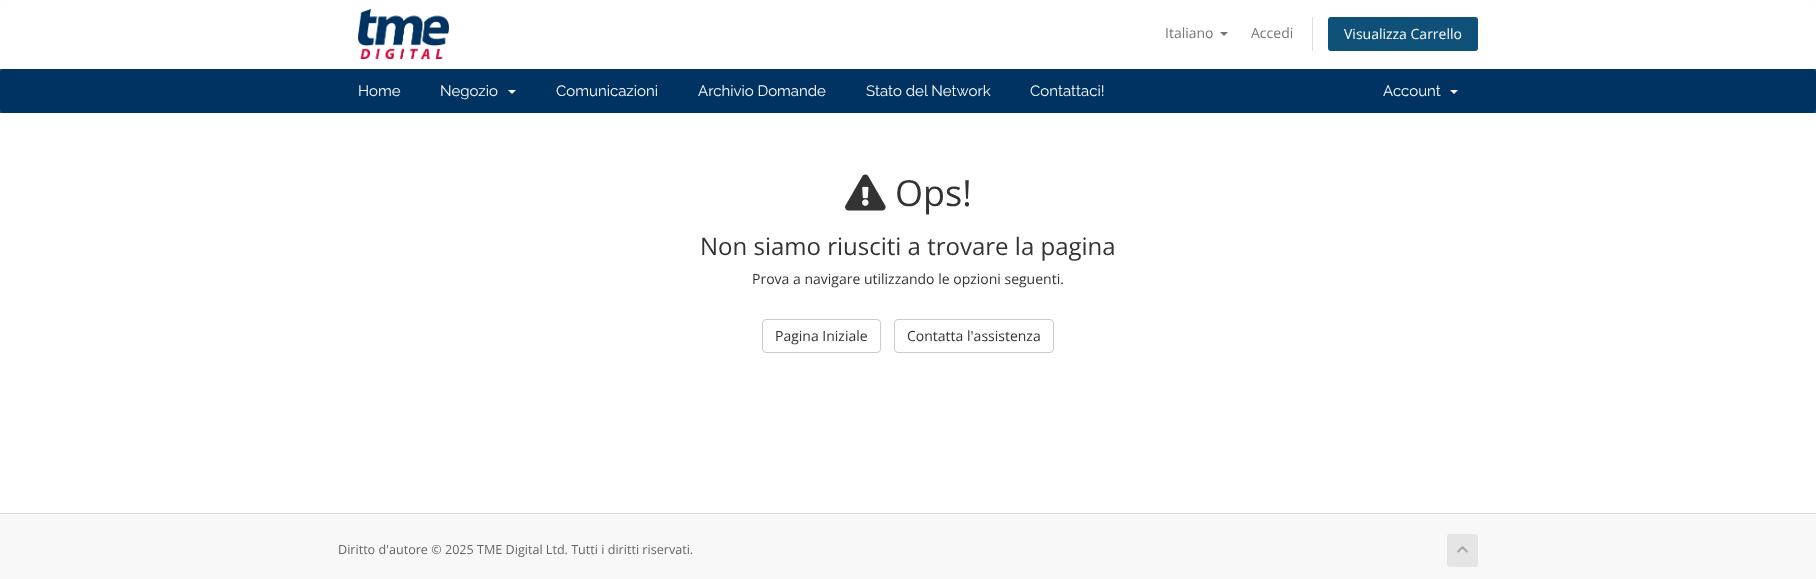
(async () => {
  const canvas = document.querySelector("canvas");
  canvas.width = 1816;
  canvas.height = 579;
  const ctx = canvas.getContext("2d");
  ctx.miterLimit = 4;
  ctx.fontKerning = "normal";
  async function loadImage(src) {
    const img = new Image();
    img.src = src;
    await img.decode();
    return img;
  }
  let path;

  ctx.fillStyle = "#f8f8f8";
  ctx.fillRect(0, 0, 1816, 579);
  ctx.fillStyle = "#ffffff";
  path = new Path2D("M5-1H1811C1814-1 1816 1 1816 4V69H0V4C0 1 2-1 5-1Z");
  ctx.fill(path);
  ctx.drawImage(await loadImage("img/1.png"), 358, 9, 91, 50);
  ctx.fillStyle = "#777777";
  path = new Path2D("M1220 32H1228L1224 36Z");
  ctx.fill(path);
  ctx.fillStyle = "#dddddd";
  ctx.fillRect(1312, 17, 1, 34);
  ctx.fillStyle = "#0e5077";
  ctx.beginPath();
  ctx.roundRect(1328, 17, 150, 34, 3);
  ctx.fill();
  ctx.fillStyle = "#006687";
  ctx.fillRect(0, 69, 1816, 44);
  ctx.fillStyle = "#003262";
  ctx.beginPath();
  ctx.roundRect(0, 69, 1816, 44, 4);
  ctx.fill();
  ctx.fillStyle = "#ffffff";
  path = new Path2D("M508 90H516L512 94Z");
  ctx.fill(path);
  path = new Path2D("M1450 90H1458L1454 94Z");
  ctx.fill(path);
  ctx.fillRect(0, 113, 1816, 400);
  ctx.drawImage(await loadImage("img/2.png"), 845, 174, 41, 37);
  ctx.beginPath();
  ctx.roundRect(762.5, 319.5, 118, 33, 3.5);
  ctx.strokeStyle = "#cccccc";
  ctx.stroke();
  ctx.beginPath();
  ctx.roundRect(894.5, 319.5, 159, 33, 3.5);
  ctx.stroke();
  ctx.fillStyle = "#dddddd";
  ctx.fillRect(0, 513, 1816, 1);
  ctx.fillStyle = "#e5e5e5";
  ctx.beginPath();
  ctx.roundRect(1447, 534, 31, 33, 3);
  ctx.fill();
  ctx.drawImage(await loadImage("img/3.png"), 1457, 546, 11, 7);
  ctx.font = "14px Open Sans";
  ctx.fillStyle = "#777777";
  ctx.fillText("Italiano", 1165, 38);
  ctx.fillText("Accedi", 1251, 38);
  ctx.fillStyle = "#ffffff";
  ctx.fillText("Visualizza Carrello", 1344, 39);
  ctx.font = "15px Raleway";
  for (const [text, x, y] of [
    ["Home", 358, 96],
    ["Negozio", 440, 96],
    ["Comunicazioni", 556, 96],
    ["Archivio Domande", 698, 96],
    ["Stato del Network", 866, 96],
    ["Contattaci!", 1030, 96],
    ["Account", 1383, 96],
  ]) {
    ctx.fillText(text, x, y);
  }
  ctx.font = "36px Open Sans";
  ctx.fillStyle = "#333333";
  ctx.fillText("Ops!", 895, 206);
  ctx.font = "24px Open Sans";
  ctx.fillText("Non siamo riusciti a trovare la pagina", 700, 255);
  ctx.font = "14px Open Sans";
  for (const [text, x, y] of [
    ["Prova a navigare utilizzando le opzioni seguenti.", 752, 284],
    ["Pagina Iniziale", 775, 341],
    ["Contatta l'assistenza", 907, 341],
  ]) {
    ctx.fillText(text, x, y);
  }
  ctx.font = "12.6px Open Sans";
  ctx.fillStyle = "#666666";
  ctx.fillText("Diritto d'autore © 2025 TME Digital Ltd. Tutti i diritti riservati.", 338, 554);
})();
